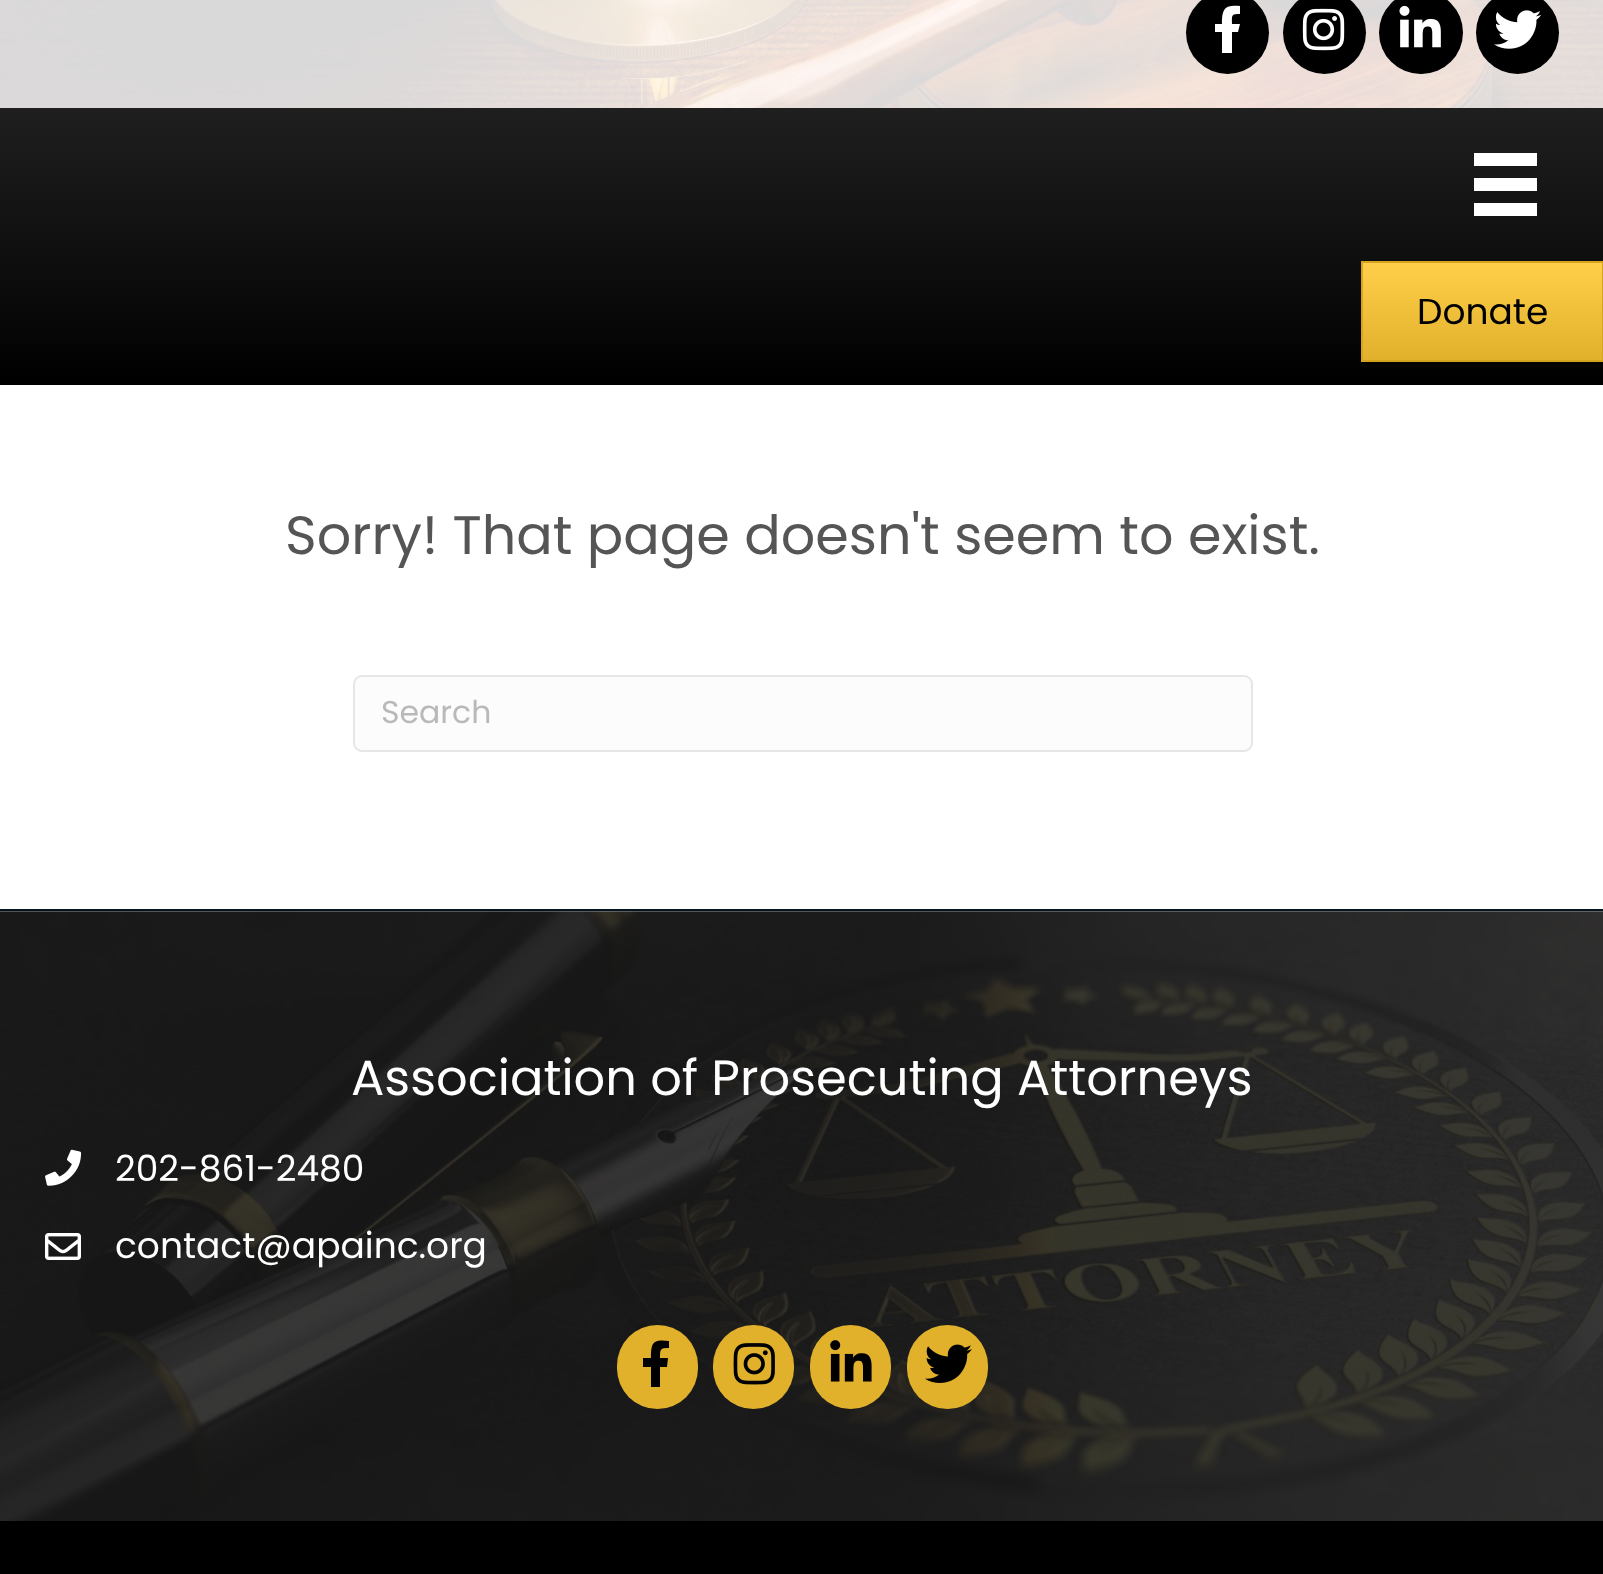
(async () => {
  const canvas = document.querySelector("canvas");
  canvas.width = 1603;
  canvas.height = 1574;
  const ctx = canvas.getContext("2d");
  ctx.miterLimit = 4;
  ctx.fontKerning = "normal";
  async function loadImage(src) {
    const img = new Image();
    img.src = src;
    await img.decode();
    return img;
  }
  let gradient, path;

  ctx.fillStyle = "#ffffff";
  ctx.fillRect(0, 0, 1603, 1574);
  ctx.drawImage(await loadImage("img/1.png"), 0, 0, 1603, 108);
  ctx.fillStyle = "#000000";
  ctx.beginPath();
  ctx.arc(1227.5, 32.5, 41.5, 0, Math.PI * 2);
  ctx.fill();
  ctx.fillStyle = "#ffffff";
  path = new Path2D("M1238 32H1232V53H1222V32H1215V24H1222C1222 8 1225 5 1240 6V14C1231 14 1232 15 1232 24H1240Z");
  ctx.fill(path);
  ctx.fillStyle = "#000000";
  ctx.beginPath();
  ctx.arc(1324.5, 32.5, 41.5, 0, Math.PI * 2);
  ctx.fill();
  ctx.drawImage(await loadImage("img/2.png"), 1302, 8, 43, 43);
  ctx.beginPath();
  ctx.roundRect(1379, -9, 84, 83, 41.5);
  ctx.fill();
  ctx.drawImage(await loadImage("img/3.png"), 1399, 5, 42, 43);
  ctx.beginPath();
  ctx.arc(1517.5, 32.5, 41.5, 0, Math.PI * 2);
  ctx.fill();
  ctx.drawImage(await loadImage("img/4.png"), 1494, 10, 47, 39);
  gradient = ctx.createLinearGradient(802, 108, 802, 385);
  gradient.addColorStop(0, "#1f1f1f");
  gradient.addColorStop(1, "#000000");
  ctx.fillStyle = gradient;
  ctx.fillRect(0, 108, 1603, 277);
  for (const [x, y, w, h, color] of [
    [1474, 153, 63, 13, "#ffffff"],
    [1474, 178, 63, 13, "#ffffff"],
    [1474, 203, 63, 13, "#ffffff"],
  ]) {
    ctx.fillStyle = color;
    ctx.fillRect(x, y, w, h);
  }
  gradient = ctx.createLinearGradient(1483, 263, 1483, 360);
  gradient.addColorStop(0, "#ffcf4a");
  gradient.addColorStop(1, "#e1b12c");
  ctx.fillStyle = gradient;
  ctx.fillRect(1363, 263, 239, 97);
  ctx.strokeStyle = "#d5a520";
  ctx.lineWidth = 2;
  ctx.strokeRect(1362, 262, 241, 99);
  ctx.fillStyle = "#fcfcfc";
  ctx.beginPath();
  ctx.roundRect(354, 676, 898, 75, 8);
  ctx.fill();
  ctx.strokeStyle = "#e6e6e6";
  ctx.stroke();
  ctx.drawImage(await loadImage("img/5.png"), 0, 911, 1603, 610);
  ctx.fillStyle = "#051622";
  ctx.fillRect(0, 909, 1603, 2);
  ctx.drawImage(await loadImage("img/6.png"), 45, 1149, 37, 37);
  ctx.drawImage(await loadImage("img/7.png"), 45, 1233, 36, 27);
  ctx.fillStyle = "#e1b12c";
  ctx.beginPath();
  ctx.roundRect(617, 1325, 81, 84, 40.5);
  ctx.fill();
  ctx.fillStyle = "#000000";
  path = new Path2D("M667 1367H660V1387H651V1367H643V1358H651C651 1342 653 1339 669 1341V1348C660 1348 660 1349 660 1358H668Z");
  ctx.fill(path);
  ctx.fillStyle = "#e1b12c";
  ctx.beginPath();
  ctx.roundRect(713, 1325, 81, 84, 40.5);
  ctx.fill();
  ctx.drawImage(await loadImage("img/8.png"), 733, 1343, 42, 42);
  ctx.beginPath();
  ctx.roundRect(810, 1325, 81, 84, 40.5);
  ctx.fill();
  ctx.drawImage(await loadImage("img/9.png"), 830, 1340, 42, 42);
  ctx.beginPath();
  ctx.roundRect(907, 1325, 81, 84, 40.5);
  ctx.fill();
  ctx.drawImage(await loadImage("img/10.png"), 925, 1344, 47, 39);
  ctx.fillStyle = "#000000";
  ctx.fillRect(0, 1521, 1603, 53);
  ctx.font = "36px Poppins";
  ctx.fillText("Donate", 1417, 324);
  ctx.font = "54px Poppins";
  ctx.fillStyle = "#555555";
  ctx.fillText("Sorry! That page doesn't seem to exist.", 285, 554);
  ctx.font = "31.5px Poppins";
  ctx.fillStyle = "#b9b9b9";
  ctx.fillText("Search", 381, 723);
  ctx.font = "49.5px Poppins";
  ctx.fillStyle = "#ffffff";
  ctx.fillText("Association of Prosecuting Attorneys", 351, 1095);
  ctx.font = "36px Poppins";
  ctx.fillText("202-861-2480", 115, 1181);
  ctx.fillText("contact@apainc.org", 115, 1258);
})();
